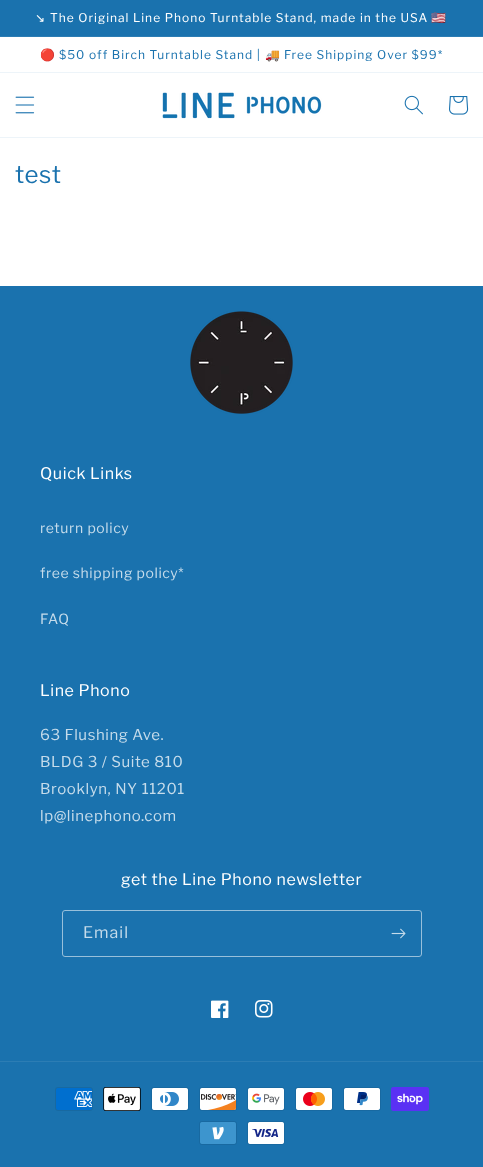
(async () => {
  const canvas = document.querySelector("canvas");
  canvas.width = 483;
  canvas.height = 1167;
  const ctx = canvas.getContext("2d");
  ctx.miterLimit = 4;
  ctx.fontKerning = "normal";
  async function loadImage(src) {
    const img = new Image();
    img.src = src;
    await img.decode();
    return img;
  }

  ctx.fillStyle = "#ffffff";
  ctx.fillRect(0, 0, 483, 1167);
  for (const [x, y, w, h, color] of [
    [0, 0, 483, 36, "#1a72ae"],
    [0, 36, 483, 1, "#2c7db4"],
    [0, 72, 483, 1, "#edf4f9"],
    [0, 137, 483, 1, "#edf4f9"],
  ]) {
    ctx.fillStyle = color;
    ctx.fillRect(x, y, w, h);
  }
  ctx.drawImage(await loadImage("img/1.png"), 15, 96, 20, 18);
  ctx.drawImage(await loadImage("img/2.png"), 162, 92, 160, 27);
  ctx.drawImage(await loadImage("img/3.png"), 404, 95, 19, 20);
  ctx.drawImage(await loadImage("img/4.png"), 449, 96, 20, 19);
  ctx.fillStyle = "#1a72ae";
  ctx.fillRect(0, 286, 483, 881);
  ctx.drawImage(await loadImage("img/5.png"), 190, 311, 103, 103);
  ctx.beginPath();
  ctx.roundRect(62.5, 910.5, 359, 46, 2.5);
  ctx.strokeStyle = "#98c0db";
  ctx.stroke();
  ctx.drawImage(await loadImage("img/6.png"), 391, 928, 15, 11);
  ctx.drawImage(await loadImage("img/7.png"), 211, 1000, 18, 18);
  ctx.drawImage(await loadImage("img/8.png"), 255, 1000, 18, 18);
  ctx.fillStyle = "#2c7db4";
  ctx.fillRect(0, 1061, 483, 1);
  ctx.drawImage(await loadImage("img/9.png"), 55, 1087, 38, 24);
  ctx.drawImage(await loadImage("img/10.png"), 103, 1087, 38, 24);
  ctx.drawImage(await loadImage("img/11.png"), 151, 1087, 38, 24);
  ctx.drawImage(await loadImage("img/12.png"), 199, 1087, 38, 24);
  ctx.drawImage(await loadImage("img/13.png"), 247, 1087, 38, 24);
  ctx.drawImage(await loadImage("img/14.png"), 295, 1087, 38, 24);
  ctx.drawImage(await loadImage("img/15.png"), 343, 1087, 38, 24);
  ctx.drawImage(await loadImage("img/16.png"), 391, 1087, 38, 24);
  ctx.drawImage(await loadImage("img/17.png"), 199, 1121, 38, 24);
  ctx.drawImage(await loadImage("img/18.png"), 247, 1121, 38, 24);
  ctx.letterSpacing = "1px";
  ctx.font = "12px DejaVu Sans";
  ctx.fillStyle = "#ffffff";
  ctx.fillText("↘", 35, 22);
  ctx.font = "12px Libre Franklin";
  ctx.fillText("The Original Line Phono Turntable Stand, made in the USA", 50, 22);
  ctx.font = "12px Noto Color Emoji";
  ctx.fillText("🇺🇸", 431, 22);
  ctx.fillStyle = "#1a72ae";
  ctx.fillText("🔴", 40, 59);
  ctx.font = "12px Libre Franklin";
  ctx.fillText("$50 off Birch Turntable Stand |", 59, 59);
  ctx.font = "12px Noto Color Emoji";
  ctx.fillText("🚚", 265, 59);
  ctx.font = "12px Libre Franklin";
  ctx.fillText("Free Shipping Over $99*", 284, 59);
  ctx.letterSpacing = "0.6px";
  ctx.font = "24px Libre Franklin";
  ctx.fillText("test", 15, 183);
  ctx.font = "16px Libre Franklin";
  ctx.fillStyle = "#ffffff";
  ctx.fillText("Quick Links", 40, 479);
  ctx.font = "14px Libre Franklin";
  ctx.fillStyle = "#c6dceb";
  for (const [text, x, y] of [
    ["return policy", 40, 533],
    ["free shipping policy*", 40, 578],
    ["FAQ", 40, 624],
  ]) {
    ctx.fillText(text, x, y);
  }
  ctx.font = "16px Libre Franklin";
  ctx.fillStyle = "#ffffff";
  ctx.fillText("Line Phono", 40, 696);
  ctx.font = "15px Libre Franklin";
  ctx.fillStyle = "#c6dceb";
  for (const [text, x, y] of [
    ["63 Flushing Ave.", 40, 740],
    ["BLDG 3 / Suite 810", 40, 767],
    ["Brooklyn, NY 11201", 40, 794],
    ["lp@linephono.com", 40, 821],
  ]) {
    ctx.fillText(text, x, y);
  }
  ctx.font = "16px Libre Franklin";
  ctx.fillStyle = "#ffffff";
  ctx.fillText("get the Line Phono newsletter", 121, 885);
  ctx.letterSpacing = "1px";
  ctx.fillStyle = "#c6dceb";
  ctx.fillText("Email", 83, 938);
})();
